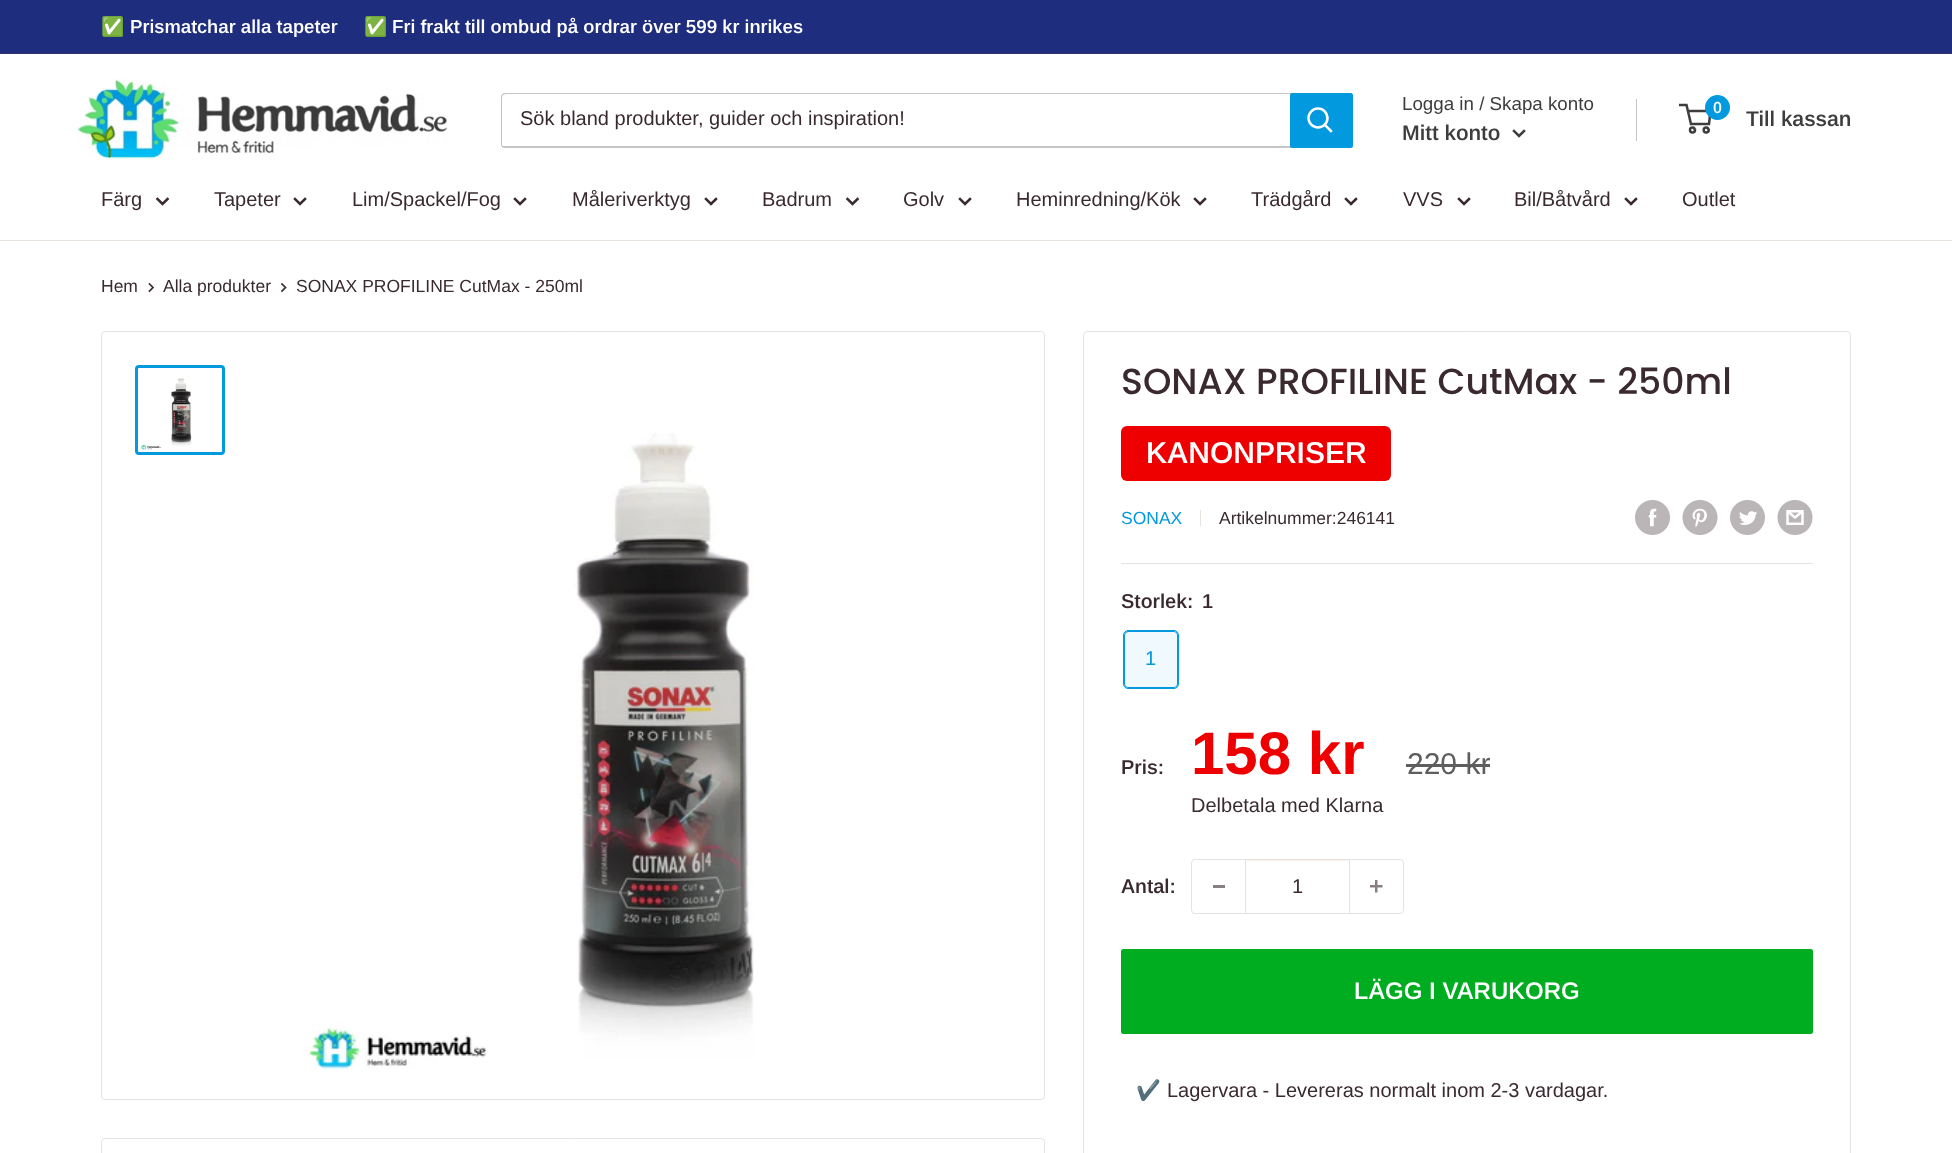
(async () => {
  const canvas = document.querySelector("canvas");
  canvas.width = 1952;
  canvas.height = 1153;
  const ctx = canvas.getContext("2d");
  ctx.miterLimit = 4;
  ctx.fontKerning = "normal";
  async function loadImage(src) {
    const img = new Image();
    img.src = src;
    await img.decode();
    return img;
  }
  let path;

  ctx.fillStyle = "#ffffff";
  ctx.fillRect(0, 0, 1952, 1153);
  ctx.fillStyle = "#1e2d7d";
  ctx.fillRect(0, 0, 1952, 53);
  ctx.fillStyle = "#27326a";
  ctx.fillRect(0, 53, 1952, 1);
  ctx.drawImage(await loadImage("img/1.png"), 77, 79, 371, 81);
  ctx.fillStyle = "#c5c5c5";
  path = new Path2D("M501 145C502 147 503 148 505 148H1349C1351 148 1353 146 1353 144V97C1353 95 1352 94 1351 93V142C1351 145 1350 146 1348 146H504C503 146 502 146 501 145Z");
  ctx.fill(path);
  ctx.fillStyle = "rgba(61, 61, 61, 0.3)";
  path = new Path2D("M506 94H1350H1352C1351 94 1350 93 1349 93H505C503 93 501 95 501 97V144C501 145 502 147 503 147L502 145V98C502 95 504 94 506 94Z");
  ctx.fill(path);
  ctx.fillStyle = "#0299de";
  ctx.beginPath();
  ctx.roundRect(1290, 93, 63, 55, 2.5);
  ctx.fill();
  path = new Path2D("M1331 131L1325 125");
  ctx.strokeStyle = "#ffffff";
  ctx.lineWidth = 2.5;
  ctx.lineCap = "square";
  ctx.stroke(path);
  ctx.beginPath();
  ctx.arc(1318, 118, 9.5, 0, Math.PI * 2);
  ctx.stroke();
  ctx.fillStyle = "#c5c5c5";
  ctx.fillRect(1636, 99, 1, 42);
  path = new Path2D("M1524 131L1519 136L1514 131");
  ctx.strokeStyle = "#3d3d3d";
  ctx.stroke(path);
  ctx.beginPath();
  ctx.arc(1692.5, 130, 2.5, 0, Math.PI * 2);
  ctx.stroke();
  ctx.beginPath();
  ctx.arc(1706.2, 130, 2.5, 0, Math.PI * 2);
  ctx.stroke();
  path = new Path2D("M1688 111H1710.5L1709 124H1691L1686.5 105H1679");
  ctx.lineCap = "butt";
  ctx.stroke(path);
  ctx.fillStyle = "#0299de";
  ctx.beginPath();
  ctx.arc(1717.5, 107.5, 12.5, 0, Math.PI * 2);
  ctx.fill();
  ctx.fillStyle = "#e7e2de";
  ctx.fillRect(0, 240, 1952, 1);
  path = new Path2D("M167.5 199L162.5 204L157.5 199");
  ctx.strokeStyle = "#3a2a2f";
  ctx.lineCap = "square";
  ctx.stroke(path);
  path = new Path2D("M305 199L300 204L295 199");
  ctx.stroke(path);
  path = new Path2D("M525 199L520 204L515 199");
  ctx.stroke(path);
  path = new Path2D("M716 199L711 204L706 199");
  ctx.stroke(path);
  path = new Path2D("M857.5 199L852.5 204L847.5 199");
  ctx.stroke(path);
  path = new Path2D("M970 199L965 204L960 199");
  ctx.stroke(path);
  path = new Path2D("M1205 199L1200 204L1195 199");
  ctx.stroke(path);
  path = new Path2D("M1356 199L1351 204L1346 199");
  ctx.stroke(path);
  path = new Path2D("M1469 199L1464 204L1459 199");
  ctx.stroke(path);
  path = new Path2D("M1636 199L1631 204L1626 199");
  ctx.stroke(path);
  path = new Path2D("M149.5 284L153 287.5L149.5 291");
  ctx.lineWidth = 1.7;
  ctx.stroke(path);
  path = new Path2D("M282 284L285.5 287.5L282 291");
  ctx.stroke(path);
  ctx.beginPath();
  ctx.roundRect(101.5, 331.5, 943, 768, 3.5);
  ctx.strokeStyle = "#e7e2de";
  ctx.lineWidth = 1;
  ctx.stroke();
  ctx.beginPath();
  ctx.roundRect(136.5, 366.5, 87, 87, 2.5);
  ctx.strokeStyle = "#0299de";
  ctx.lineWidth = 3;
  ctx.stroke();
  ctx.drawImage(await loadImage("img/2.png"), 140, 378, 52, 72);
  ctx.drawImage(await loadImage("img/3.png"), 303, 433, 451, 637);
  ctx.beginPath();
  ctx.roundRect(1083.5, 331.5, 767, 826, 3.5);
  ctx.strokeStyle = "#e7e2de";
  ctx.lineWidth = 1;
  ctx.stroke();
  ctx.fillStyle = "#ee0000";
  ctx.beginPath();
  ctx.roundRect(1121, 426, 270, 55, 6);
  ctx.fill();
  ctx.fillStyle = "#e7e2de";
  ctx.fillRect(1200, 510, 1, 16);
  ctx.drawImage(await loadImage("img/4.png"), 1635, 500, 35, 35);
  ctx.drawImage(await loadImage("img/5.png"), 1682, 500, 36, 35);
  ctx.drawImage(await loadImage("img/6.png"), 1730, 500, 35, 35);
  ctx.drawImage(await loadImage("img/7.png"), 1777, 500, 36, 35);
  ctx.fillRect(1121, 563, 692, 1);
  ctx.beginPath();
  ctx.roundRect(1123.5, 630.5, 55, 58, 4.5);
  ctx.strokeStyle = "#0299de";
  ctx.stroke();
  ctx.fillStyle = "rgba(2, 153, 222, 0.06)";
  ctx.fillRect(1124, 631, 54, 57);
  ctx.beginPath();
  ctx.roundRect(1124.5, 631.5, 53, 56, 3.5);
  ctx.stroke();
  ctx.fillStyle = "#5e5e5e";
  ctx.fillRect(1406, 764, 84, 3);
  ctx.beginPath();
  ctx.roundRect(1191.5, 859.5, 212, 54, 3.5);
  ctx.strokeStyle = "#e7e2de";
  ctx.stroke();
  for (const [x, y, w, h, color] of [
    [1213, 885, 12, 3, "#897f82"],
    [1246, 860, 103, 1, "#f5f3f2"],
    [1349, 860, 1, 53, "#e7e2de"],
    [1245, 860, 1, 53, "#e7e2de"],
  ]) {
    ctx.fillStyle = color;
    ctx.fillRect(x, y, w, h);
  }
  ctx.drawImage(await loadImage("img/8.png"), 1370, 880, 13, 13);
  ctx.fillStyle = "#00ad20";
  ctx.beginPath();
  ctx.roundRect(1121, 949, 692, 85, 2.5);
  ctx.fill();
  ctx.beginPath();
  ctx.roundRect(101.5, 1138.5, 943, 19, 3.5);
  ctx.stroke();
  ctx.font = "bold 18.75px Noto Color Emoji";
  ctx.fillStyle = "#ffffff";
  ctx.fillText("✅", 101, 33);
  ctx.font = "600 18.75px Arimo";
  ctx.fillText("Prismatchar alla tapeter", 130, 33);
  ctx.font = "bold 18.75px Noto Color Emoji";
  ctx.fillText("✅", 364, 33);
  ctx.font = "600 18.75px Arimo";
  ctx.fillText("Fri frakt till ombud på ordrar över 599 kr inrikes", 392, 33);
  ctx.font = "20px Arimo";
  ctx.fillStyle = "#3a2a2f";
  ctx.fillText("Sök bland produkter, guider och inspiration!", 520, 125);
  ctx.font = "18.75px Arimo";
  ctx.fillStyle = "#3d3d3d";
  ctx.fillText("Logga in / Skapa konto", 1402, 110);
  ctx.font = "600 21.25px Arimo";
  ctx.fillText("Mitt konto", 1402, 140);
  ctx.font = "600 16px Arimo";
  ctx.fillStyle = "#ffffff";
  ctx.fillText("0", 1713, 113);
  ctx.font = "600 21.25px Arimo";
  ctx.fillStyle = "#3d3d3d";
  ctx.fillText("Till kassan", 1746, 126);
  ctx.font = "20px Arimo";
  ctx.fillStyle = "#3a2a2f";
  for (const [text, x, y] of [
    ["Färg", 101, 206],
    ["Tapeter", 214, 206],
    ["Lim/Spackel/Fog", 352, 206],
    ["Måleriverktyg", 572, 206],
    ["Badrum", 762, 206],
    ["Golv", 903, 206],
    ["Heminredning/Kök", 1016, 206],
    ["Trädgård", 1251, 206],
    ["VVS", 1403, 206],
    ["Bil/Båtvård", 1514, 206],
    ["Outlet", 1682, 206],
  ]) {
    ctx.fillText(text, x, y);
  }
  ctx.font = "17.5px Arimo";
  for (const [text, x, y] of [
    ["Hem", 101, 292],
    ["Alla produkter", 163, 292],
    ["SONAX PROFILINE CutMax - 250ml", 296, 292],
  ]) {
    ctx.fillText(text, x, y);
  }
  ctx.font = "500 36.25px Poppins";
  ctx.fillText("SONAX PROFILINE CutMax - 250ml", 1121, 394);
  ctx.font = "600 30px Arimo";
  ctx.fillStyle = "#ffffff";
  ctx.fillText("KANONPRISER", 1146, 463);
  ctx.font = "17.5px Arimo";
  ctx.fillStyle = "#0299de";
  ctx.fillText("SONAX", 1121, 524);
  ctx.fillStyle = "#3a2a2f";
  ctx.fillText("Artikelnummer:246141", 1219, 524);
  ctx.font = "600 20px Arimo";
  ctx.fillText("Storlek:", 1121, 608);
  ctx.fillText("1", 1202, 608);
  ctx.font = "20px Arimo";
  ctx.fillStyle = "#0299de";
  ctx.fillText("1", 1145, 665);
  ctx.font = "600 20px Arimo";
  ctx.fillStyle = "#3a2a2f";
  ctx.fillText("Pris:", 1121, 774);
  ctx.font = "bold 60px Arimo";
  ctx.fillStyle = "#ee0000";
  ctx.fillText("158 kr", 1191, 774);
  ctx.font = "30px Arimo";
  ctx.fillStyle = "#5e5e5e";
  ctx.fillText("220 kr", 1407, 774);
  ctx.font = "20px Arimo";
  ctx.fillStyle = "#3a2a2f";
  ctx.fillText("Delbetala med Klarna", 1191, 812);
  ctx.font = "600 20px Arimo";
  ctx.fillText("Antal:", 1121, 893);
  ctx.font = "20px Arimo";
  ctx.fillText("1", 1292, 893);
  ctx.font = "600 24px Arimo";
  ctx.fillStyle = "#ffffff";
  ctx.fillText("LÄGG I VARUKORG", 1354, 999);
  ctx.font = "20px Noto Color Emoji";
  ctx.fillStyle = "#3a2a2f";
  ctx.fillText("✔️", 1136, 1097);
  ctx.font = "20px Arimo";
  ctx.fillText("Lagervara - Levereras normalt inom 2-3 vardagar.", 1167, 1097);
})();
